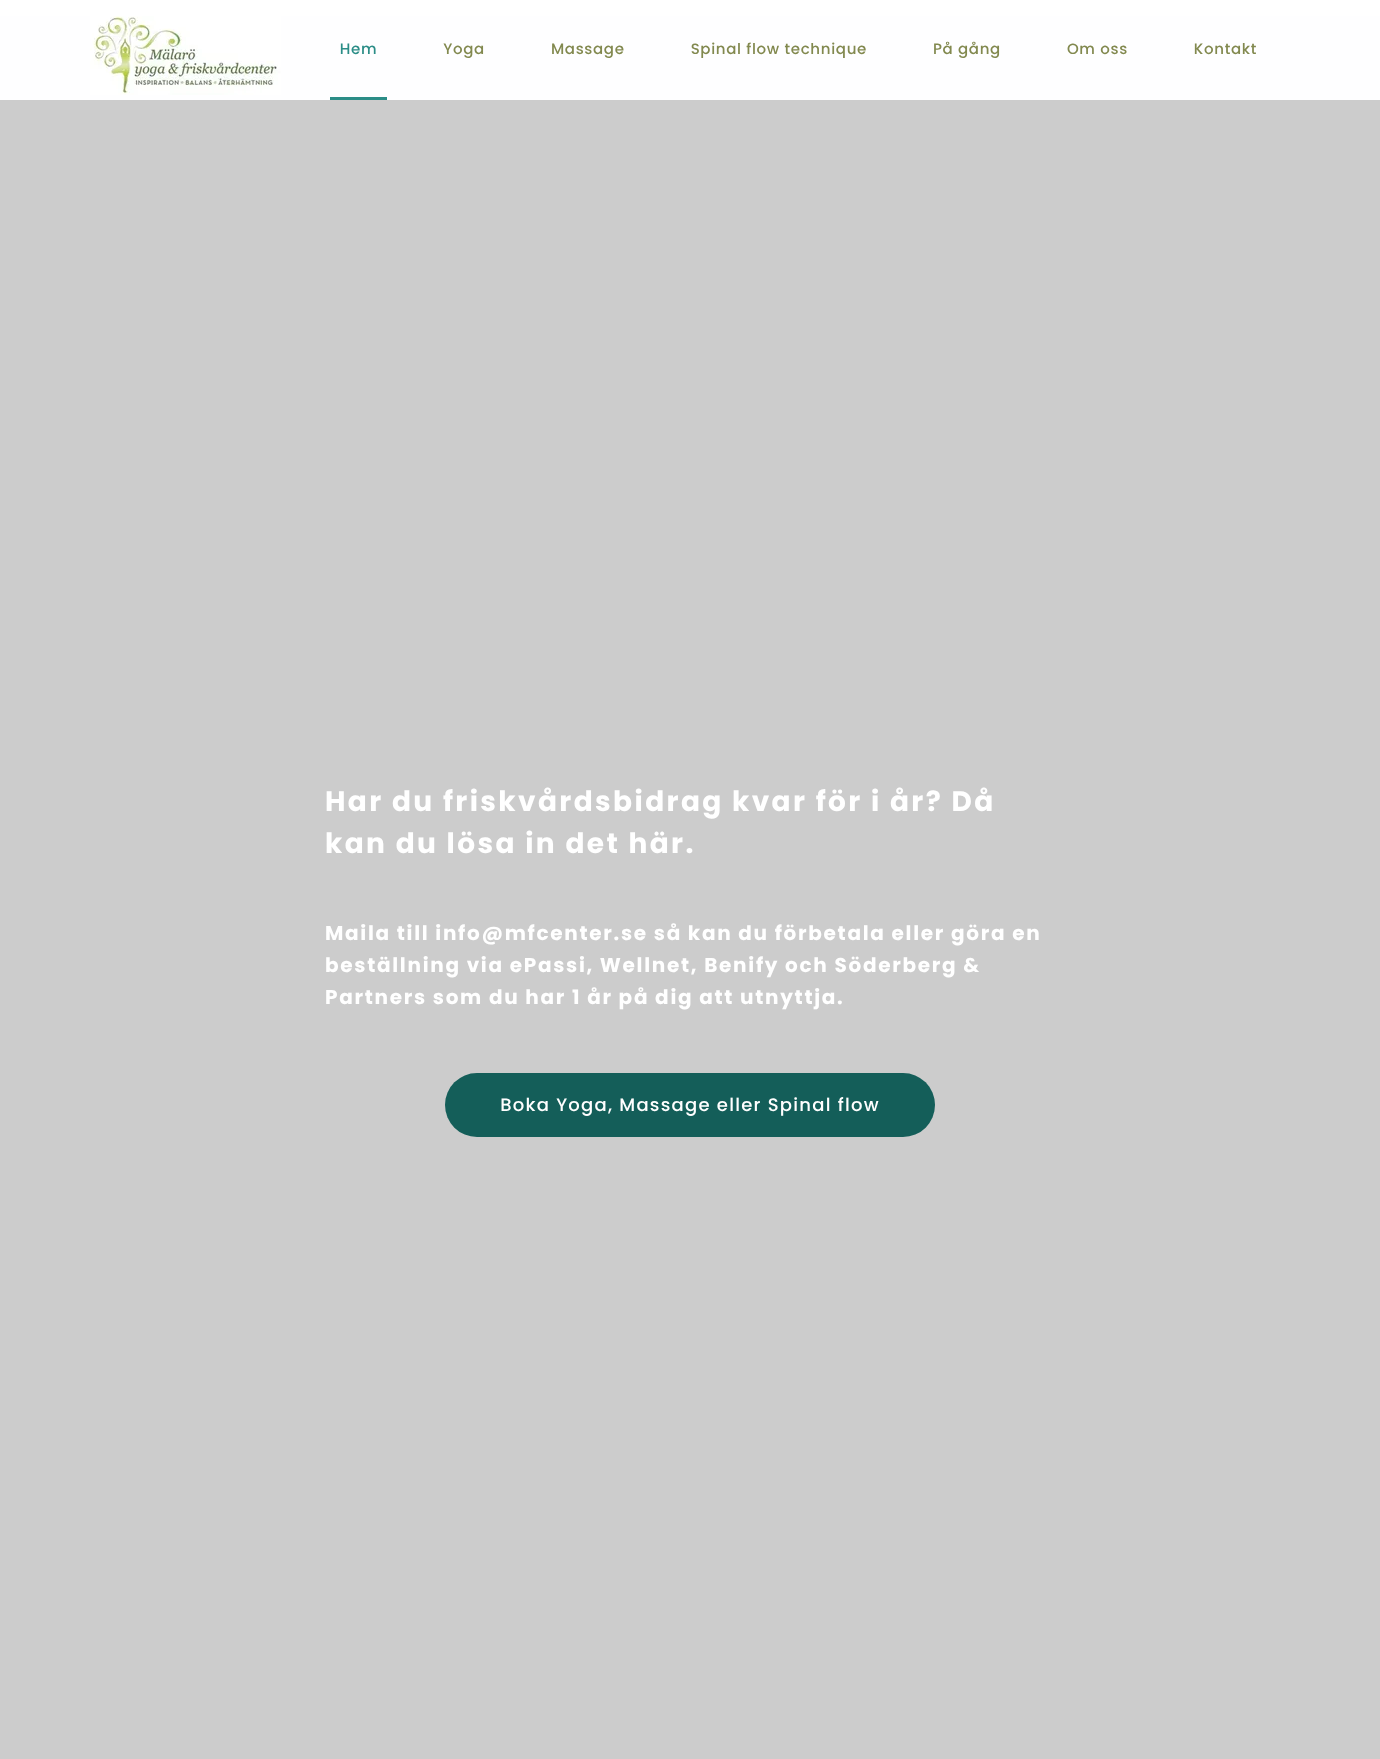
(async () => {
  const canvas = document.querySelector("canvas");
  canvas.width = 1380;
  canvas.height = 1759;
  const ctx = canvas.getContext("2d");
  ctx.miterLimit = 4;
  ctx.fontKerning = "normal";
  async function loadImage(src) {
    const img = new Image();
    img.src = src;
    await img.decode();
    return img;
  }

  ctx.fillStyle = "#ffffff";
  ctx.fillRect(0, 0, 1380, 1759);
  ctx.drawImage(await loadImage("img/1.png"), 0, 16, 1380, 1743);
})();
